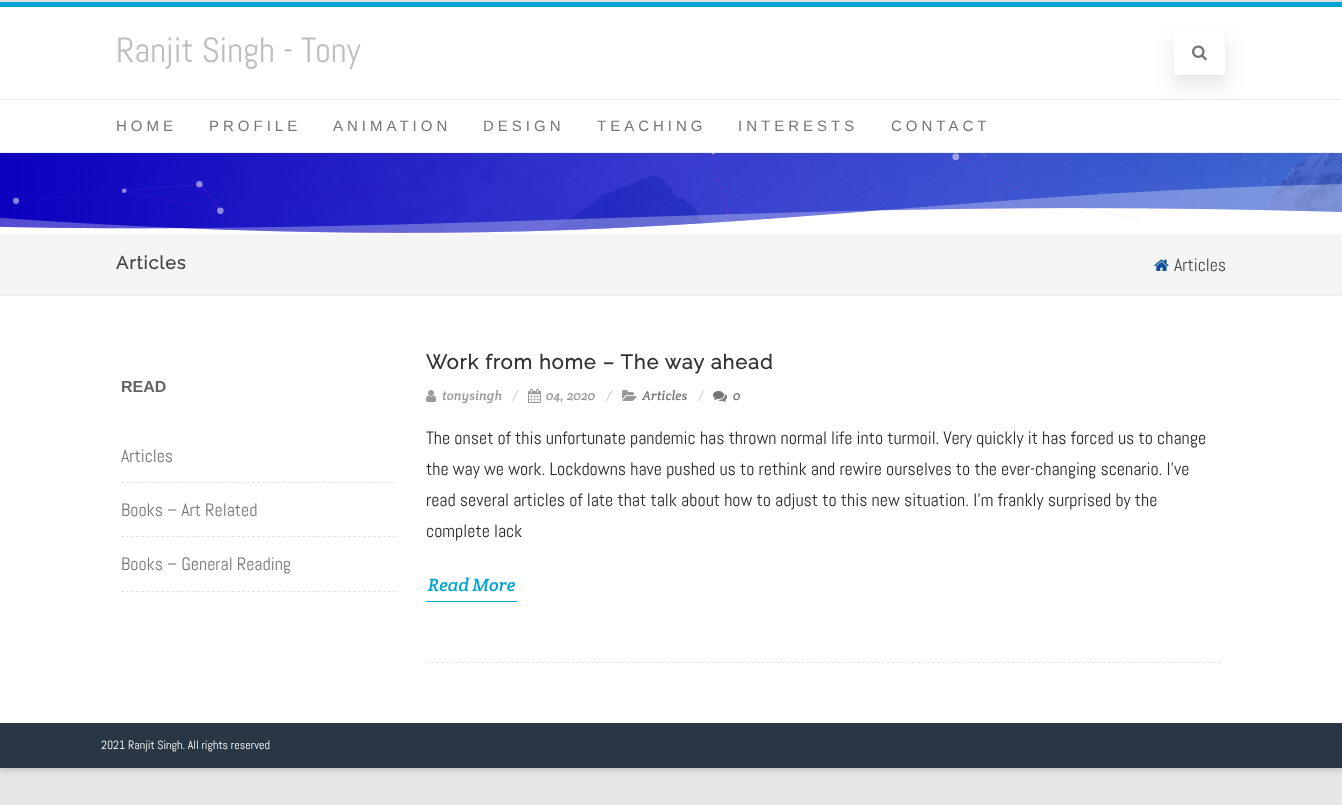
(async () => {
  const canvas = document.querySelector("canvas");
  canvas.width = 1342;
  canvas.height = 805;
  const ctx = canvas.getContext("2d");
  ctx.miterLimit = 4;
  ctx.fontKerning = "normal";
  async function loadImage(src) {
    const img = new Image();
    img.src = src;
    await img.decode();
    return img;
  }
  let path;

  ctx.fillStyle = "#e6e6e6";
  ctx.fillRect(0, 0, 1342, 805);
  ctx.fillStyle = "rgba(100, 100, 100, 0.3)";
  ctx.filter = "blur(3px)";
  ctx.beginPath();
  ctx.rect(0, 4, 1342, 766);
  ctx.fill();
  ctx.filter = "none";
  for (const [x, y, w, h, color] of [
    [0, 7, 1342, 716, "#ffffff"],
    [0, 2, 1342, 5, "#00a4d0"],
    [0, 99, 1342, 1, "#eeeeee"],
  ]) {
    ctx.fillStyle = color;
    ctx.fillRect(x, y, w, h);
  }
  ctx.save();
  path = new Path2D("M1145 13H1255V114H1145ZM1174 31H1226V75H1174Z");
  ctx.clip(path, "evenodd");
  ctx.fillStyle = "rgba(64, 64, 64, 0.13)";
  ctx.filter = "blur(9px)";
  ctx.beginPath();
  ctx.rect(1173, 41, 54, 45);
  ctx.fill();
  ctx.filter = "none";
  ctx.restore();
  ctx.fillStyle = "#f1f1f1";
  ctx.fillRect(1225, 31, 1, 44);
  ctx.drawImage(await loadImage("img/1.png"), 1192, 45, 15, 16);
  ctx.fillStyle = "#eeeeee";
  ctx.fillRect(0, 152, 1342, 1);
  ctx.drawImage(await loadImage("img/2.png"), 0, 153, 1342, 80);
  ctx.drawImage(await loadImage("img/3.png"), 0, 184, 1342, 50);
  ctx.drawImage(await loadImage("img/4.png"), 12, 153, 1130, 68);
  ctx.fillStyle = "#f5f5f5";
  ctx.fillRect(0, 234, 1342, 61);
  ctx.fillStyle = "#eeeeee";
  ctx.fillRect(0, 295, 1342, 1);
  ctx.drawImage(await loadImage("img/5.png"), 1154, 259, 15, 12);
  path = new Path2D("M121 482.5H396");
  ctx.strokeStyle = "#e3e3e3";
  ctx.setLineDash([3, 2.04]);
  ctx.stroke(path);
  path = new Path2D("M121 536.5H396");
  ctx.stroke(path);
  path = new Path2D("M121 591.5H396");
  ctx.stroke(path);
  path = new Path2D("M426 662.5H1221");
  ctx.setLineDash([3, 2.01]);
  ctx.stroke(path);
  ctx.drawImage(await loadImage("img/6.png"), 426, 390, 10, 12);
  ctx.drawImage(await loadImage("img/7.png"), 528, 389, 13, 14);
  ctx.drawImage(await loadImage("img/8.png"), 622, 390, 15, 11);
  ctx.drawImage(await loadImage("img/9.png"), 713, 391, 14, 11);
  ctx.fillStyle = "#00a4d0";
  ctx.fillRect(426, 601, 91, 1);
  ctx.fillStyle = "#293744";
  ctx.fillRect(0, 723, 1342, 45);
  ctx.font = "35px Abel";
  ctx.fillStyle = "#bdbdbd";
  ctx.fillText("Ranjit Singh - Tony", 116, 62);
  ctx.letterSpacing = "4px";
  ctx.font = "15px Liberation Sans";
  ctx.fillStyle = "#757575";
  for (const [text, x, y] of [
    ["HOME", 116, 131],
    ["PROFILE", 209, 131],
    ["ANIMATION", 333, 131],
    ["DESIGN", 483, 131],
    ["TEACHING", 597, 131],
    ["INTERESTS", 738, 131],
    ["CONTACT", 891, 131],
  ]) {
    ctx.fillText(text, x, y);
  }
  ctx.letterSpacing = "1px";
  ctx.font = "bold 18px Raleway";
  ctx.fillStyle = "#444444";
  ctx.fillText("Articles", 116, 269);
  ctx.letterSpacing = "0px";
  ctx.font = "18px Abel";
  ctx.fillText("Articles", 1174, 271);
  ctx.font = "bold 16px Liberation Sans";
  ctx.fillStyle = "#636363";
  ctx.fillText("READ", 121, 392);
  ctx.font = "18px Abel";
  ctx.fillStyle = "#757575";
  for (const [text, x, y] of [
    ["Articles", 121, 462],
    ["Books – Art Related", 121, 516],
    ["Books – General Reading", 121, 570],
  ]) {
    ctx.fillText(text, x, y);
  }
  ctx.letterSpacing = "1px";
  ctx.font = "bold 20px Raleway";
  ctx.fillStyle = "#333333";
  ctx.fillText("Work from home – The way ahead", 426, 369);
  ctx.letterSpacing = "0px";
  ctx.font = "italic 13px Crete Round";
  ctx.fillStyle = "#999999";
  ctx.fillText("tonysingh", 442, 400);
  ctx.fillStyle = "#cccccc";
  ctx.fillText("/", 512, 400);
  ctx.fillStyle = "#999999";
  ctx.fillText("04, 2020", 546, 400);
  ctx.fillStyle = "#cccccc";
  ctx.fillText("/", 606, 400);
  ctx.fillStyle = "#757575";
  ctx.fillText("Articles", 642, 400);
  ctx.fillStyle = "#cccccc";
  ctx.fillText("/", 698, 400);
  ctx.fillStyle = "#757575";
  ctx.fillText("0", 733, 400);
  ctx.font = "18px Abel";
  ctx.fillStyle = "#262626";
  for (const [text, x, y] of [
    ["The onset of this unfortunate pandemic has thrown normal life into turmoil. Very quickly it has forced us to change", 426, 444],
    ["the way we work. Lockdowns have pushed us to rethink and rewire ourselves to the ever-changing scenario. I’ve", 426, 475],
    ["read several articles of late that talk about how to adjust to this new situation. I’m frankly surprised by the", 426, 506],
    ["complete lack", 426, 537],
  ]) {
    ctx.fillText(text, x, y);
  }
  ctx.font = "italic 18px Crete Round";
  ctx.fillStyle = "#00a4d0";
  ctx.fillText("Read More", 428, 591);
  ctx.font = "12px Abel";
  ctx.fillStyle = "#ffffff";
  ctx.fillText("2021 Ranjit Singh. All rights reserved", 101, 749);
})();
